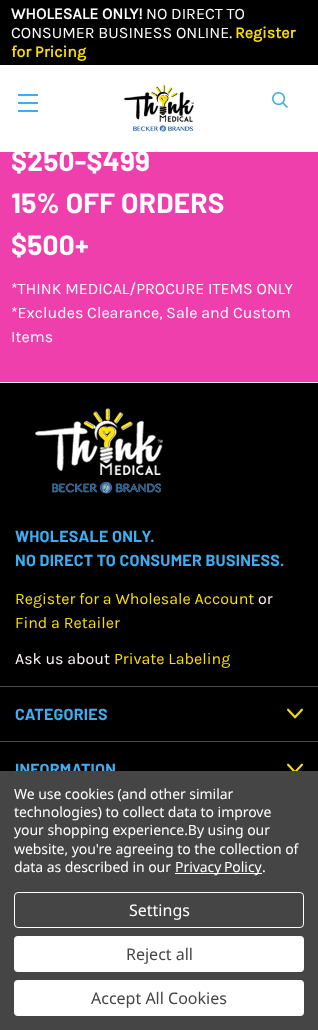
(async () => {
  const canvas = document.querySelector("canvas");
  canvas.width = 318;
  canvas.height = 1030;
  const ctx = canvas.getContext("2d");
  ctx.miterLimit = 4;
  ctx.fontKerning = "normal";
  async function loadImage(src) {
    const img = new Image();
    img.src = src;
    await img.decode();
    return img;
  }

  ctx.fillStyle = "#ef3fad";
  ctx.fillRect(0, 0, 318, 1030);
  ctx.fillStyle = "#000000";
  ctx.fillRect(0, 0, 318, 65);
  ctx.fillStyle = "#ffffff";
  ctx.fillRect(0, 65, 318, 87);
  ctx.drawImage(await loadImage("img/1.png"), 124, 85, 70, 47);
  ctx.drawImage(await loadImage("img/2.png"), 272, 92, 16, 16);
  for (const [x, y, w, h, color] of [
    [18, 102, 20, 2, "#3fadef"],
    [18, 94, 20, 2, "#3fadef"],
    [18, 110, 20, 2, "#3fadef"],
    [0, 383, 318, 388, "#000000"],
    [0, 382, 318, 1, "#ebebeb"],
  ]) {
    ctx.fillStyle = color;
    ctx.fillRect(x, y, w, h);
  }
  ctx.drawImage(await loadImage("img/3.png"), 35, 408, 128, 86);
  ctx.fillStyle = "#4a4a4a";
  ctx.fillRect(0, 686, 318, 1);
  ctx.fillRect(0, 741, 318, 1);
  ctx.drawImage(await loadImage("img/4.png"), 287, 708, 16, 11);
  ctx.drawImage(await loadImage("img/5.png"), 287, 763, 16, 8);
  ctx.font = "bold 16px Karla";
  ctx.fillStyle = "#ffffff";
  ctx.fillText("WHOLESALE ONLY!", 11, 19);
  ctx.font = "16px Karla";
  ctx.fillText("NO DIRECT TO", 146, 19);
  ctx.fillText("CONSUMER BUSINESS ONLINE.", 11, 38);
  ctx.font = "bold 16px Karla";
  ctx.fillStyle = "#fadf06";
  ctx.fillText("Register", 235, 38);
  ctx.fillText("for Pricing", 11, 57);
  ctx.letterSpacing = "0.25px";
  ctx.font = "bold 28px Barlow";
  ctx.fillStyle = "#ffffff";
  for (const [text, x, y] of [
    ["$250-$499", 11, 171],
    ["15% OFF ORDERS", 11, 213],
    ["$500+", 11, 255],
  ]) {
    ctx.fillText(text, x, y);
  }
  ctx.letterSpacing = "0px";
  ctx.font = "16px Karla";
  for (const [text, x, y] of [
    ["*THINK MEDICAL/PROCURE ITEMS ONLY", 11, 294],
    ["*Excludes Clearance, Sale and Custom", 11, 318],
    ["Items", 11, 342],
  ]) {
    ctx.fillText(text, x, y);
  }
  ctx.letterSpacing = "0.25px";
  ctx.font = "bold 16px Barlow";
  ctx.fillStyle = "#3fadef";
  ctx.fillText("WHOLESALE ONLY.", 15, 542);
  ctx.fillText("NO DIRECT TO CONSUMER BUSINESS.", 15, 566);
  ctx.letterSpacing = "0px";
  ctx.font = "16px Karla";
  ctx.fillStyle = "#fadf06";
  ctx.fillText("Register for a Wholesale Account", 15, 604);
  ctx.fillStyle = "#fef4fa";
  ctx.fillText("or", 258, 604);
  ctx.fillStyle = "#fadf06";
  ctx.fillText("Find a Retailer", 15, 628);
  ctx.fillStyle = "#fef4fa";
  ctx.fillText("Ask us about", 15, 664);
  ctx.fillStyle = "#fadf06";
  ctx.fillText("Private Labeling", 114, 664);
  ctx.letterSpacing = "0.25px";
  ctx.font = "bold 16px Barlow";
  ctx.fillStyle = "#3fadef";
  ctx.fillText("CATEGORIES", 15, 720);
  ctx.fillText("INFORMATION", 15, 775);
  ctx.fillStyle = "#454545";
  ctx.fillRect(0, 771, 318, 259);
  ctx.letterSpacing = "-0.05px";
  ctx.font = "14px Noto Sans";
  ctx.fillStyle = "#ffffff";
  for (const [text, x, y] of [
    ["We use cookies (and other similar", 14, 799],
    ["technologies) to collect data to improve", 14, 817],
    ["your shopping experience.By using our", 14, 835],
    ["website, you're agreeing to the collection of", 14, 854],
    ["data as described in our", 14, 872],
    [".", 262, 872],
  ]) {
    ctx.fillText(text, x, y);
  }
  ctx.fillRect(175, 873, 87, 1);
  ctx.wordSpacing = "-1px";
  ctx.fillText("Privacy Policy", 175, 872);
  ctx.beginPath();
  ctx.roundRect(14.5, 892.5, 289, 35, 3.5);
  ctx.strokeStyle = "#ffffff";
  ctx.stroke();
  ctx.letterSpacing = "0px";
  ctx.wordSpacing = "0px";
  ctx.font = "16px Noto Sans";
  ctx.fillText("Settings", 129, 916);
  ctx.beginPath();
  ctx.roundRect(14, 936, 290, 36, 4);
  ctx.fill();
  ctx.fillStyle = "#454545";
  ctx.fillText("Reject all", 126, 960);
  ctx.fillStyle = "#ffffff";
  ctx.beginPath();
  ctx.roundRect(14, 980, 290, 36, 4);
  ctx.fill();
  ctx.fillStyle = "#454545";
  ctx.fillText("Accept All Cookies", 91, 1004);
})();
